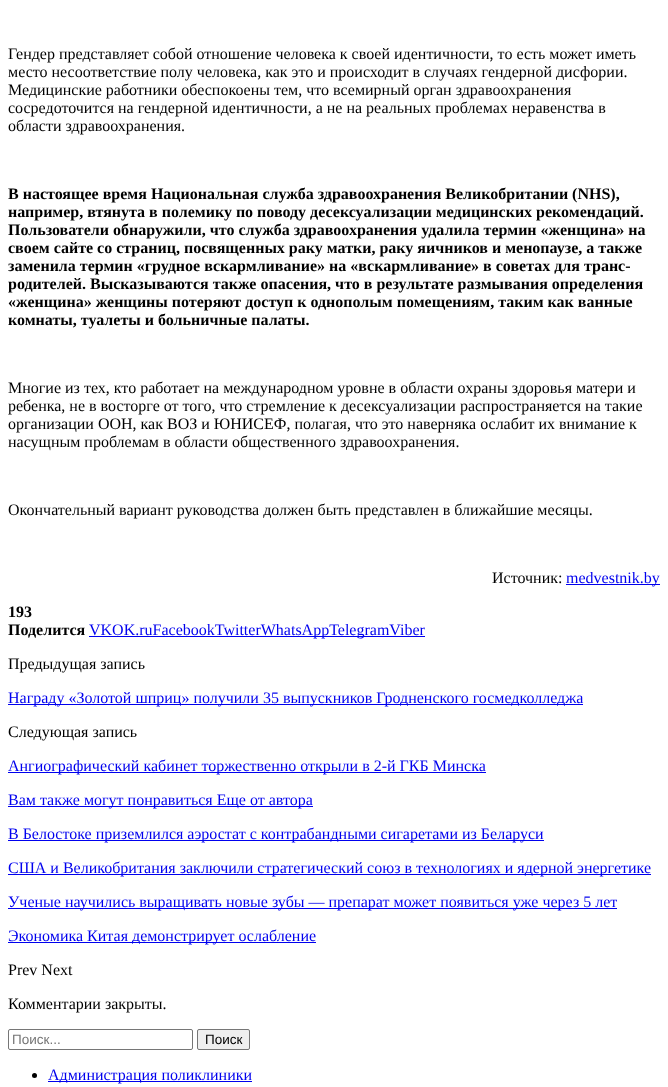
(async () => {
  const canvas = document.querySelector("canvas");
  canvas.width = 668;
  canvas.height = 1087;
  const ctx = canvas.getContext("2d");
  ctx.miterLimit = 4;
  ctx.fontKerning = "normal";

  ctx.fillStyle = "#ffffff";
  ctx.fillRect(0, 0, 668, 1087);
  for (const [x, y, w, h, color] of [
    [566, 584, 94, 1, "#0000ee"],
    [89, 636, 336, 1, "#0000ee"],
    [8, 704, 575, 1, "#0000ee"],
    [8, 772, 478, 1, "#0000ee"],
    [8, 806, 305, 1, "#0000ee"],
    [8, 840, 536, 1, "#0000ee"],
    [8, 874, 643, 1, "#0000ee"],
    [8, 908, 609, 1, "#0000ee"],
    [8, 942, 308, 1, "#0000ee"],
  ]) {
    ctx.fillStyle = color;
    ctx.fillRect(x, y, w, h);
  }
  ctx.beginPath();
  ctx.roundRect(8.5, 1029.5, 184, 20, 1.5);
  ctx.strokeStyle = "#767676";
  ctx.stroke();
  ctx.fillStyle = "#efefef";
  ctx.beginPath();
  ctx.roundRect(197.5, 1029.5, 52, 20, 1.5);
  ctx.fill();
  ctx.stroke();
  ctx.fillStyle = "#000000";
  ctx.beginPath();
  ctx.arc(34.5, 1075.5, 2.5, 0, Math.PI * 2);
  ctx.fill();
  ctx.fillStyle = "#0000ee";
  ctx.fillRect(48, 1081, 204, 1);
  ctx.font = "16px Liberation Serif";
  ctx.fillStyle = "#000000";
  for (const [text, x, y] of [
    ["Гендер представляет собой отношение человека к своей идентичности, то есть может иметь", 8, 59],
    ["место несоответствие полу человека, как это и происходит в случаях гендерной дисфории.", 8, 77],
    ["Медицинские работники обеспокоены тем, что всемирный орган здравоохранения", 8, 95],
    ["сосредоточится на гендерной идентичности, а не на реальных проблемах неравенства в", 8, 113],
    ["области здравоохранения.", 8, 131],
  ]) {
    ctx.fillText(text, x, y);
  }
  ctx.font = "bold 16px Liberation Serif";
  for (const [text, x, y] of [
    ["В настоящее время Национальная служба здравоохранения Великобритании (NHS),", 8, 199],
    ["например, втянута в полемику по поводу десексуализации медицинских рекомендаций.", 8, 217],
    ["Пользователи обнаружили, что служба здравоохранения удалила термин «женщина» на", 8, 235],
    ["своем сайте со страниц, посвященных раку матки, раку яичников и менопаузе, а также", 8, 253],
    ["заменила термин «грудное вскармливание» на «вскармливание» в советах для транс-", 8, 271],
    ["родителей. Высказываются также опасения, что в результате размывания определения", 8, 289],
    ["«женщина» женщины потеряют доступ к однополым помещениям, таким как ванные", 8, 307],
    ["комнаты, туалеты и больничные палаты.", 8, 325],
  ]) {
    ctx.fillText(text, x, y);
  }
  ctx.font = "16px Liberation Serif";
  for (const [text, x, y] of [
    ["Многие из тех, кто работает на международном уровне в области охраны здоровья матери и", 8, 393],
    ["ребенка, не в восторге от того, что стремление к десексуализации распространяется на такие", 8, 411],
    ["организации ООН, как ВОЗ и ЮНИСЕФ, полагая, что это наверняка ослабит их внимание к", 8, 429],
    ["насущным проблемам в области общественного здравоохранения.", 8, 447],
    ["Окончательный вариант руководства должен быть представлен в ближайшие месяцы.", 8, 515],
    ["Источник:", 492, 583],
  ]) {
    ctx.fillText(text, x, y);
  }
  ctx.fillStyle = "#0000ee";
  ctx.fillText("medvestnik.by", 566, 583);
  ctx.font = "bold 16px Liberation Serif";
  ctx.fillStyle = "#000000";
  ctx.fillText("193", 8, 617);
  ctx.fillText("Поделится", 8, 635);
  ctx.font = "16px Liberation Serif";
  ctx.fillStyle = "#0000ee";
  ctx.fillText("VKOK.ruFacebookTwitterWhatsAppTelegramViber", 89, 635);
  ctx.fillStyle = "#000000";
  ctx.fillText("Предыдущая запись", 8, 669);
  ctx.fillStyle = "#0000ee";
  ctx.fillText("Награду «Золотой шприц» получили 35 выпускников Гродненского госмедколледжа", 8, 703);
  ctx.fillStyle = "#000000";
  ctx.fillText("Следующая запись", 8, 737);
  ctx.fillStyle = "#0000ee";
  for (const [text, x, y] of [
    ["Ангиографический кабинет торжественно открыли в 2-й ГКБ Минска", 8, 771],
    ["Вам также могут понравиться Еще от автора", 8, 805],
    ["В Белостоке приземлился аэростат с контрабандными сигаретами из Беларуси", 8, 839],
    ["США и Великобритания заключили стратегический союз в технологиях и ядерной энергетике", 8, 873],
    ["Ученые научились выращивать новые зубы — препарат может появиться уже через 5 лет", 8, 907],
    ["Экономика Китая демонстрирует ослабление", 8, 941],
  ]) {
    ctx.fillText(text, x, y);
  }
  ctx.fillStyle = "#000000";
  ctx.fillText("Prev Next", 8, 975);
  ctx.fillText("Комментарии закрыты.", 8, 1009);
  ctx.font = "13.5px Liberation Sans";
  ctx.fillStyle = "#757575";
  ctx.fillText("Поиск...", 12, 1044);
  ctx.fillStyle = "#000000";
  ctx.fillText("Поиск", 205, 1044);
  ctx.font = "16px Liberation Serif";
  ctx.fillStyle = "#0000ee";
  ctx.fillText("Администрация поликлиники", 48, 1080);
})();
